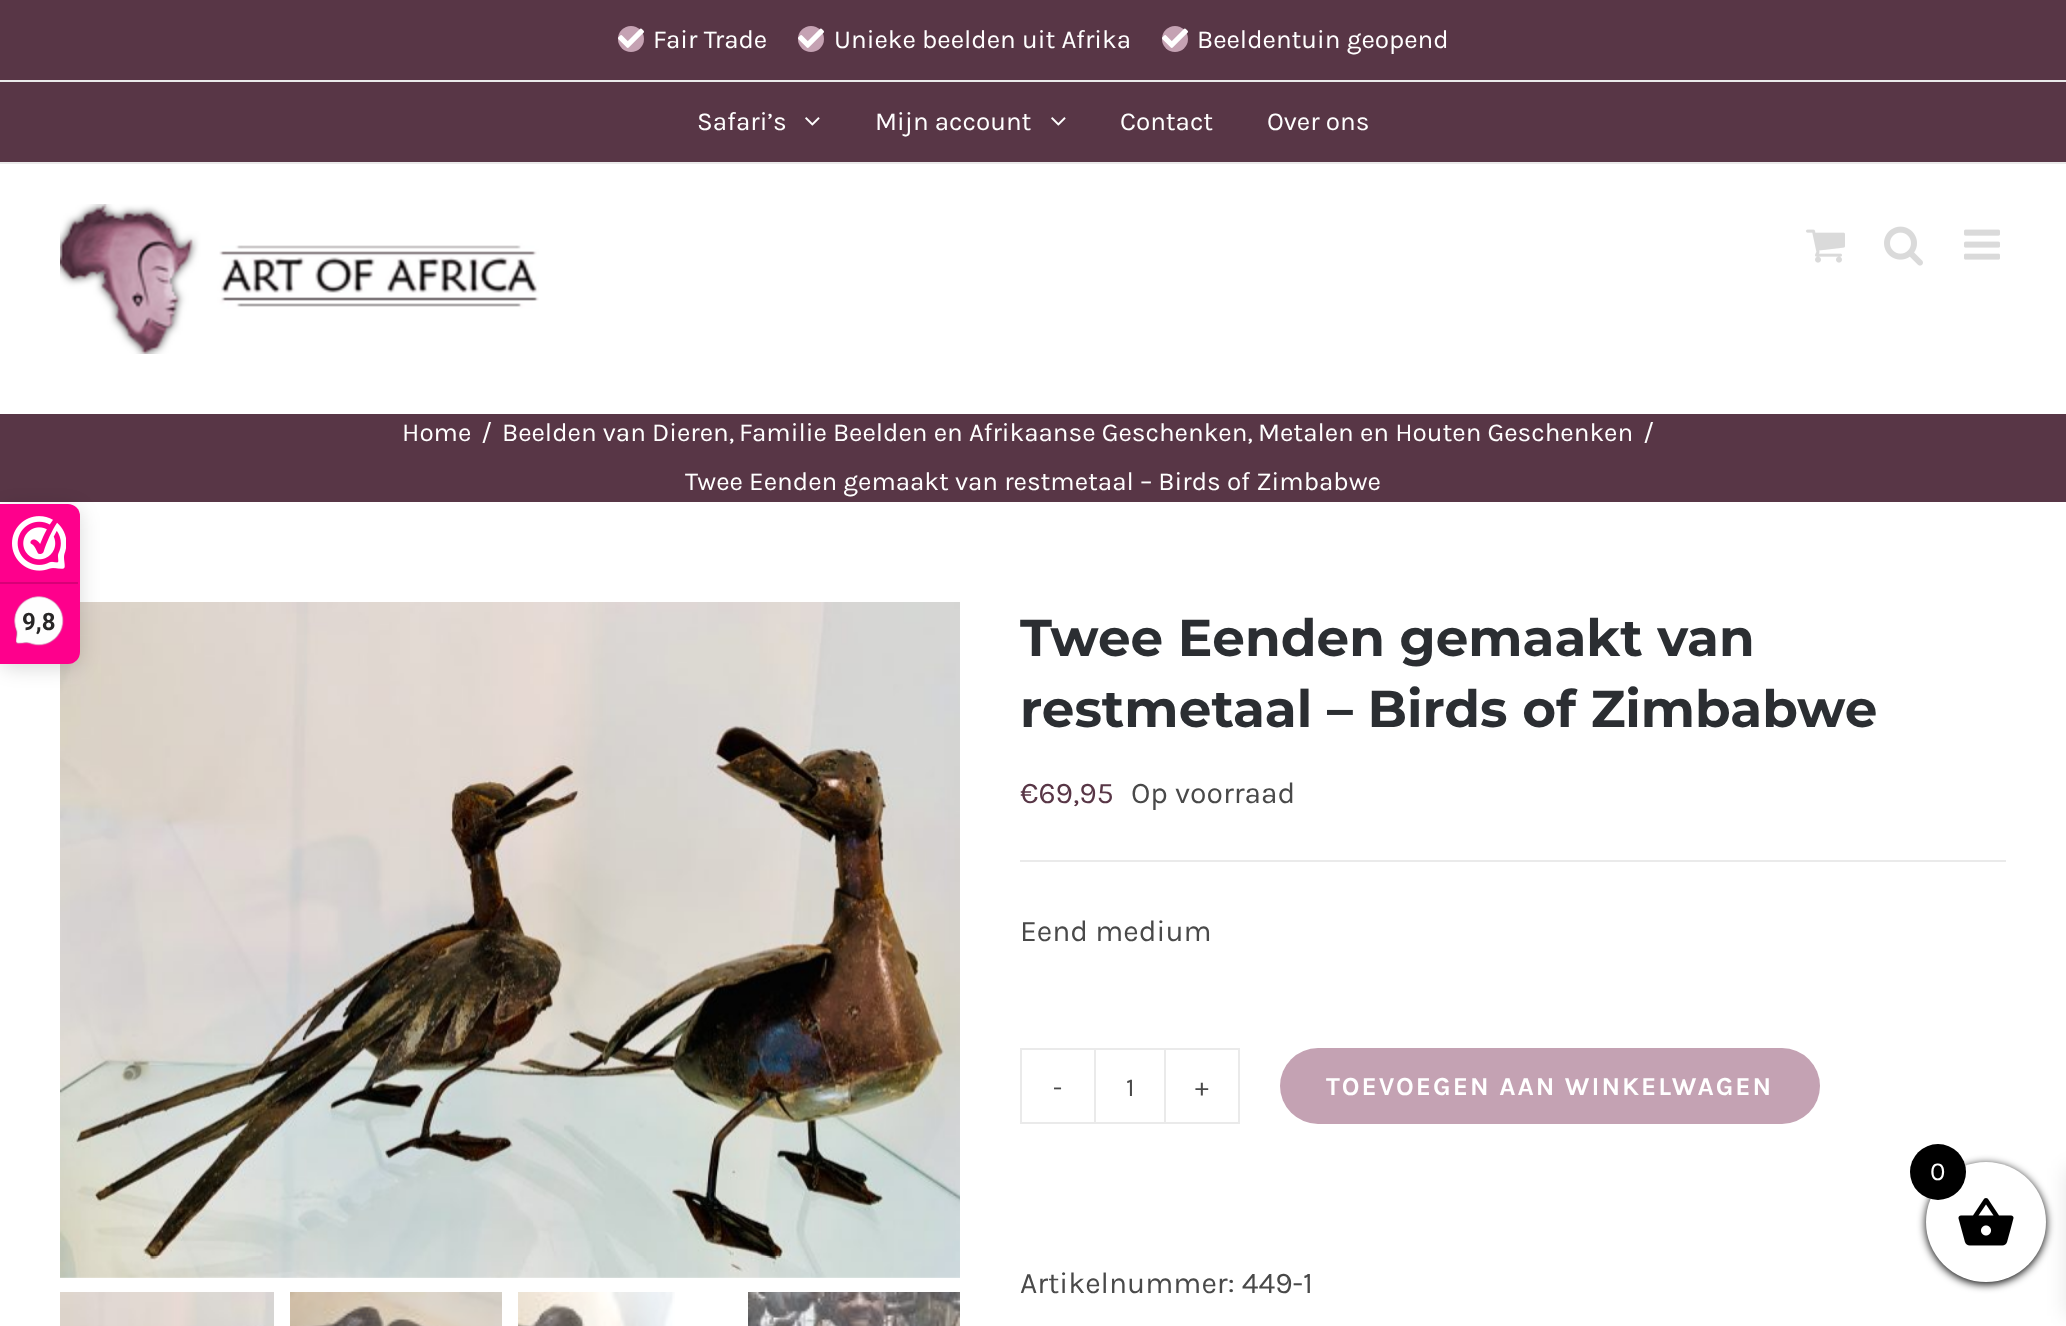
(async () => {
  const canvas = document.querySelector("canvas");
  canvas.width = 2066;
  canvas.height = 1326;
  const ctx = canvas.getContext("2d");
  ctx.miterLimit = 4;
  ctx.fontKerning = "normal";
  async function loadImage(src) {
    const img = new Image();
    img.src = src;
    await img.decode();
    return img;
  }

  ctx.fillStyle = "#ffffff";
  ctx.fillRect(0, 0, 2066, 1326);
  ctx.fillStyle = "#583646";
  ctx.fillRect(0, 414, 2066, 88);
  ctx.drawImage(await loadImage("img/9.png"), 60, 602, 900, 676);
  ctx.fillStyle = "rgba(0, 0, 0, 0.15)";
  ctx.filter = "blur(10px)";
  ctx.beginPath();
  ctx.roundRect(0, 508, 80, 160, 12);
  ctx.fill();
  ctx.filter = "none";
  ctx.fillStyle = "#fe008c";
  ctx.beginPath();
  ctx.roundRect(0, 504, 80, 160, [0, 12, 12, 0]);
  ctx.fill();
  ctx.drawImage(await loadImage("img/1.png"), 12, 516, 54, 55);
  ctx.fillStyle = "#d80077";
  ctx.fillRect(0, 582, 78, 2);
  ctx.drawImage(await loadImage("img/2.png"), 14, 596, 50, 50);
  for (const [x, y, w, h, color] of [
    [0, 0, 2066, 162, "#583646"],
    [0, 162, 2066, 2, "#eaeaea"],
    [0, 80, 2066, 2, "#eaeaea"],
  ]) {
    ctx.fillStyle = color;
    ctx.fillRect(x, y, w, h);
  }
  ctx.fillStyle = "#c5a2b3";
  ctx.beginPath();
  ctx.arc(631, 39, 13, 0, Math.PI * 2);
  ctx.fill();
  ctx.drawImage(await loadImage("img/3.png"), 618, 28, 26, 20);
  ctx.beginPath();
  ctx.arc(811, 39, 13, 0, Math.PI * 2);
  ctx.fill();
  ctx.drawImage(await loadImage("img/3.png"), 798, 28, 26, 20);
  ctx.beginPath();
  ctx.arc(1175, 39, 13, 0, Math.PI * 2);
  ctx.fill();
  ctx.drawImage(await loadImage("img/3.png"), 1162, 28, 26, 20);
  ctx.drawImage(await loadImage("img/4.png"), 805, 117, 15, 9);
  ctx.drawImage(await loadImage("img/4.png"), 1051, 117, 15, 9);
  ctx.drawImage(await loadImage("img/5.png"), 60, 204, 479, 150);
  ctx.drawImage(await loadImage("img/6.png"), 1806, 229, 39, 34);
  ctx.drawImage(await loadImage("img/7.png"), 1884, 226, 39, 40);
  ctx.drawImage(await loadImage("img/8.png"), 1964, 229, 36, 31);
  ctx.drawImage(await loadImage("img/10.png"), 60, 1292, 214, 34);
  ctx.drawImage(await loadImage("img/11.png"), 290, 1292, 212, 34);
  ctx.drawImage(await loadImage("img/12.png"), 518, 1292, 157, 34);
  ctx.drawImage(await loadImage("img/13.png"), 748, 1292, 212, 34);
  ctx.fillStyle = "#eaeaea";
  ctx.fillRect(1020, 860, 986, 2);
  ctx.strokeStyle = "#eaeaea";
  ctx.lineWidth = 2;
  ctx.strokeRect(1021, 1049, 218, 74);
  ctx.fillRect(1164, 1050, 2, 72);
  ctx.fillRect(1094, 1050, 2, 72);
  ctx.fillStyle = "#c4a2b3";
  ctx.beginPath();
  ctx.roundRect(1280, 1048, 540, 76, 38);
  ctx.fill();
  ctx.fillStyle = "#000000";
  ctx.filter = "blur(4px)";
  ctx.beginPath();
  ctx.roundRect(1926, 1164, 120, 120, 60);
  ctx.fill();
  ctx.filter = "none";
  ctx.fillStyle = "rgba(0, 0, 0, 0.1)";
  ctx.filter = "blur(10px)";
  ctx.beginPath();
  ctx.rect(2066, 1168, 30, 148);
  ctx.fill();
  ctx.filter = "none";
  ctx.fillStyle = "#ffffff";
  ctx.beginPath();
  ctx.arc(1986, 1222, 60, 0, Math.PI * 2);
  ctx.fill();
  ctx.drawImage(await loadImage("img/14.png"), 1958, 1198, 56, 48);
  ctx.fillStyle = "#000000";
  ctx.beginPath();
  ctx.arc(1938, 1172, 28, 0, Math.PI * 2);
  ctx.fill();
  ctx.font = "bold 24px Roboto";
  ctx.fillStyle = "#272626";
  ctx.fillText("9,8", 22, 630);
  ctx.font = "26px Karla";
  ctx.fillStyle = "#ffffff";
  for (const [text, x, y] of [
    ["Fair Trade", 653, 48],
    ["Unieke beelden uit Afrika", 834, 48],
    ["Beeldentuin geopend", 1197, 48],
    ["Safari’s", 697, 130],
    ["Mijn account", 875, 130],
    ["Contact", 1120, 130],
    ["Over ons", 1267, 130],
    ["Home", 402, 441],
    ["/", 481, 441],
    ["Beelden van Dieren,", 502, 441],
    ["Familie Beelden en Afrikaanse Geschenken,", 739, 441],
    ["Metalen en Houten Geschenken", 1258, 441],
    ["/", 1643, 441],
    ["Twee Eenden gemaakt van restmetaal – Birds of Zimbabwe", 685, 490],
  ]) {
    ctx.fillText(text, x, y);
  }
  ctx.font = "bold 51.7px Montserrat";
  ctx.fillStyle = "#2b2e32";
  ctx.fillText("Twee Eenden gemaakt van", 1020, 656);
  ctx.fillText("restmetaal – Birds of Zimbabwe", 1020, 727);
  ctx.font = "30px Karla";
  ctx.fillStyle = "#583646";
  ctx.fillText("€69,95", 1020, 803);
  ctx.fillStyle = "#494949";
  ctx.fillText("Op voorraad", 1131, 803);
  ctx.fillText("Eend medium", 1020, 941);
  ctx.font = "26px Karla";
  for (const [text, x, y] of [
    ["-", 1053, 1096],
    ["1", 1126, 1096],
    ["+", 1195, 1096],
  ]) {
    ctx.fillText(text, x, y);
  }
  ctx.letterSpacing = "2px";
  ctx.font = "bold 26px Karla";
  ctx.fillStyle = "#ffffff";
  ctx.fillText("TOEVOEGEN AAN WINKELWAGEN", 1326, 1095);
  ctx.letterSpacing = "0px";
  ctx.font = "30px Karla";
  ctx.fillStyle = "#494949";
  ctx.fillText("Artikelnummer: 449-1", 1020, 1293);
  ctx.font = "26px Karla";
  ctx.fillStyle = "#ffffff";
  ctx.fillText("0", 1930, 1180);
})();
